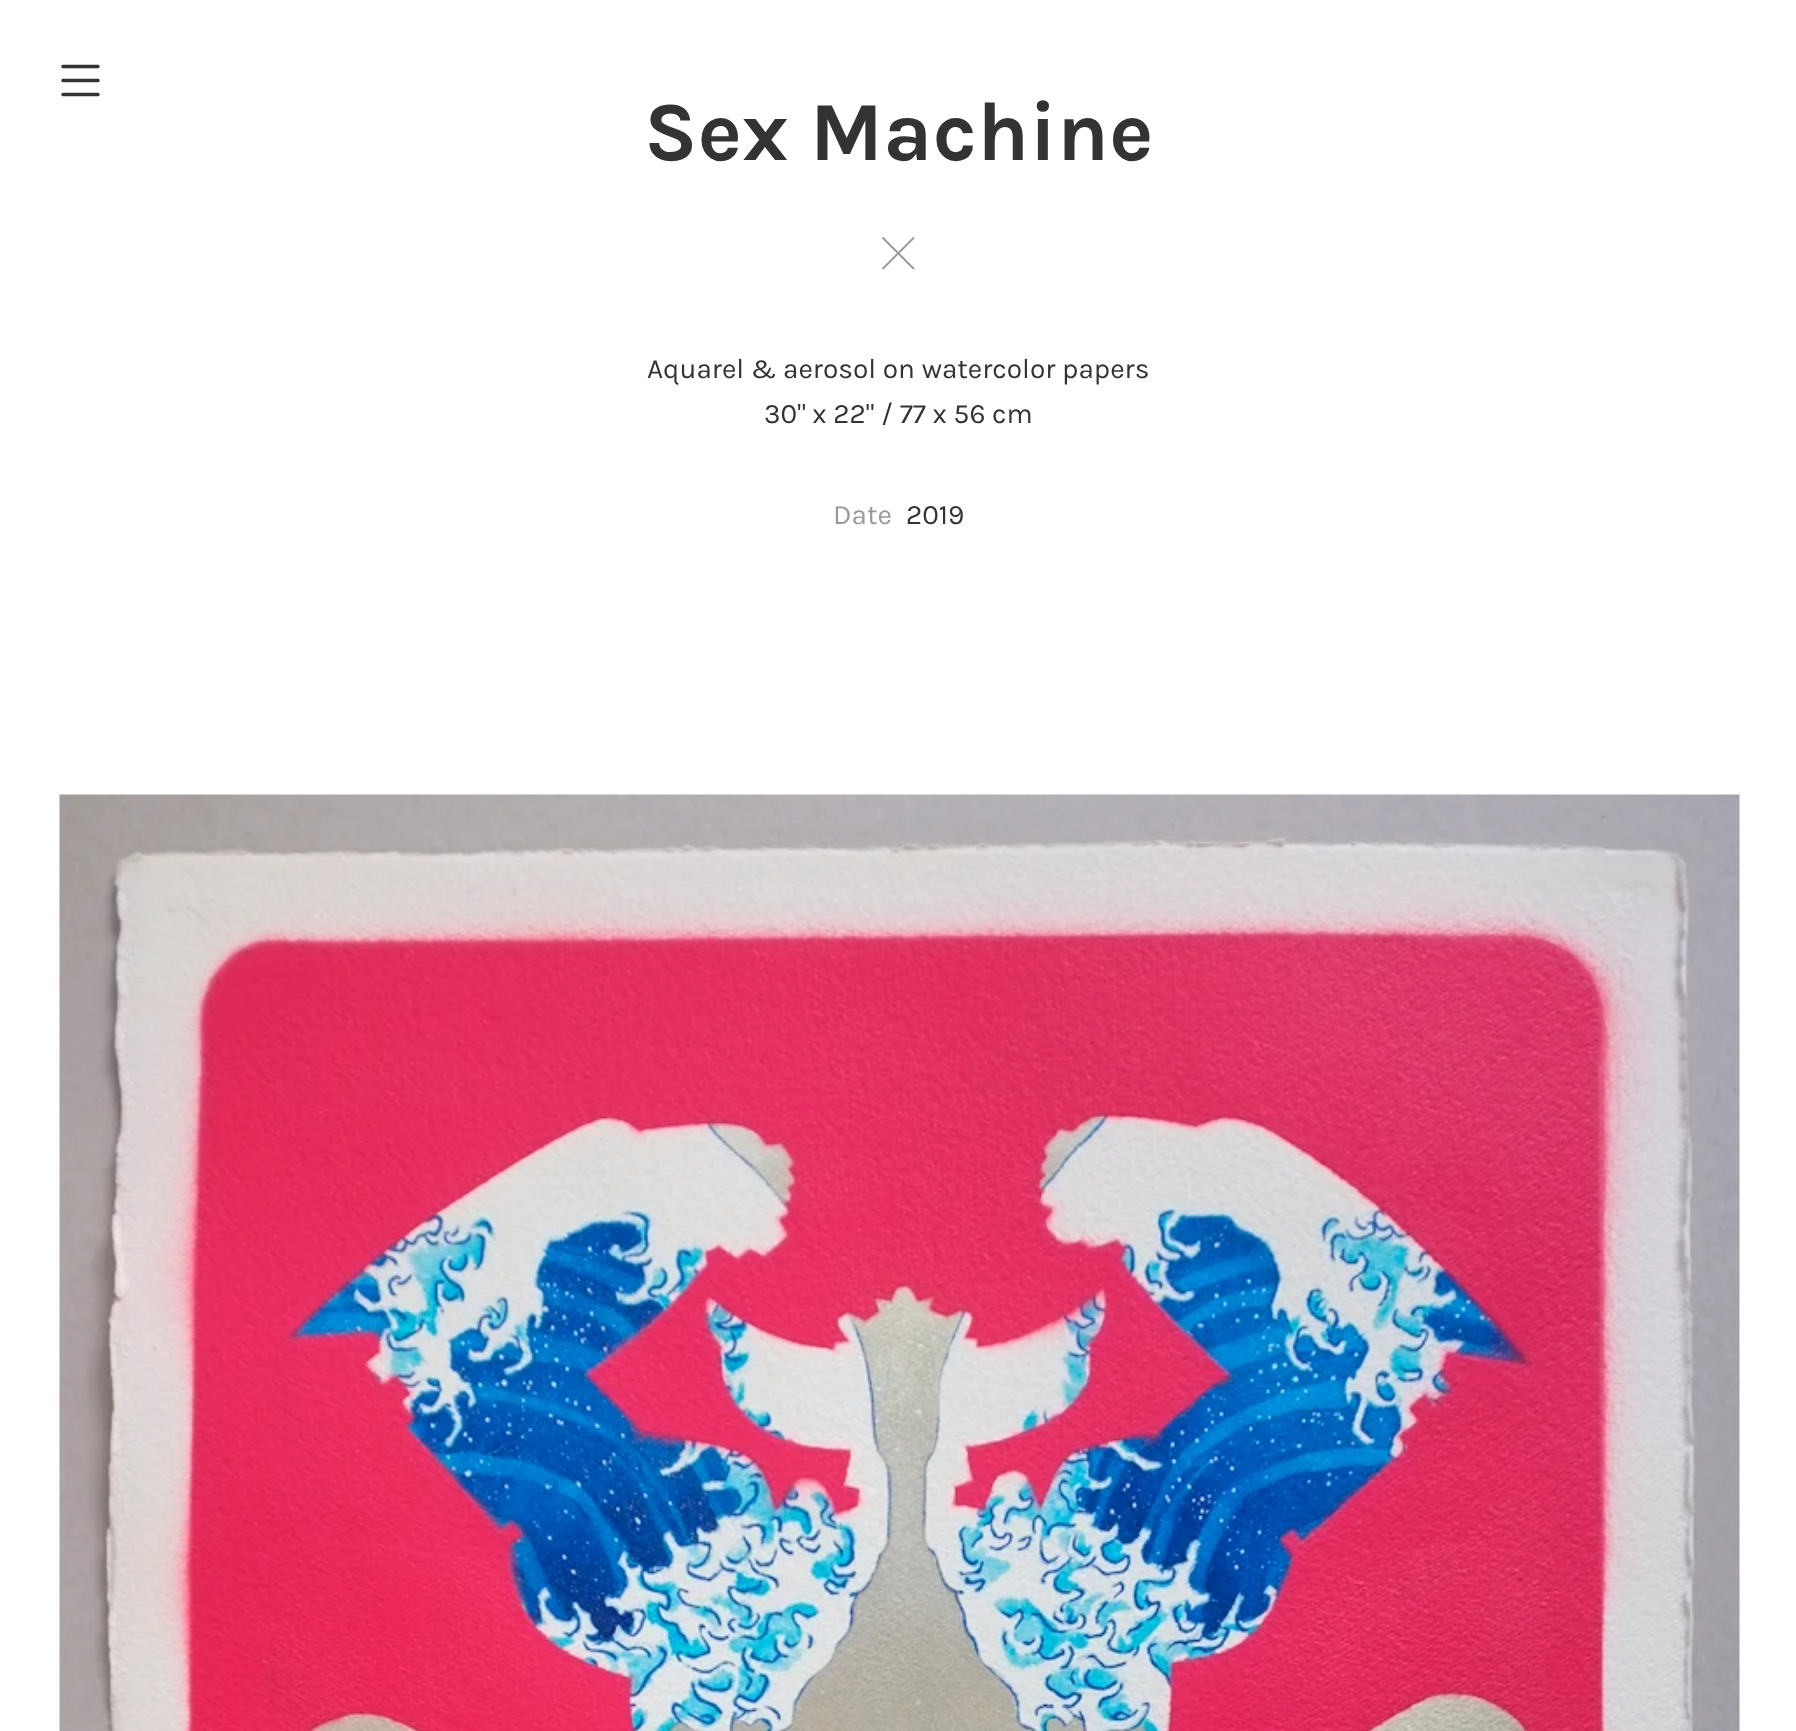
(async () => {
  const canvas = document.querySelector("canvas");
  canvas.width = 1796;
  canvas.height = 1731;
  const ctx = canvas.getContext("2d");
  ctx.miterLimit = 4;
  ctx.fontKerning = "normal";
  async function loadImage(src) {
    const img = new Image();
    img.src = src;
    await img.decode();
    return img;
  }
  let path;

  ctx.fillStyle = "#ffffff";
  ctx.fillRect(0, 0, 1796, 1731);
  path = new Path2D("M63 66.5H98M63 80.5H98M63 94.5H98");
  ctx.strokeStyle = "#333333";
  ctx.lineWidth = 3.5;
  ctx.lineCap = "round";
  ctx.stroke(path);
  path = new Path2D("M914 269L882.5 237.5M914 237.5L882.5 269");
  ctx.strokeStyle = "#999999";
  ctx.lineWidth = 1.8;
  ctx.lineCap = "butt";
  ctx.stroke(path);
  ctx.drawImage(await loadImage("img/1.png"), 59, 794, 1681, 937);
  ctx.font = "bold 84px Karla";
  ctx.fillStyle = "#333333";
  ctx.fillText("Sex Machine", 644, 160);
  ctx.font = "28px Karla";
  ctx.fillText("Aquarel & aerosol on watercolor papers", 647, 378);
  ctx.fillText("30\" x 22\" / 77 x 56 cm", 764, 423);
  ctx.fillStyle = "#999999";
  ctx.fillText("Date", 833, 524);
  ctx.fillStyle = "#333333";
  ctx.fillText("2019", 906, 524);
})();
